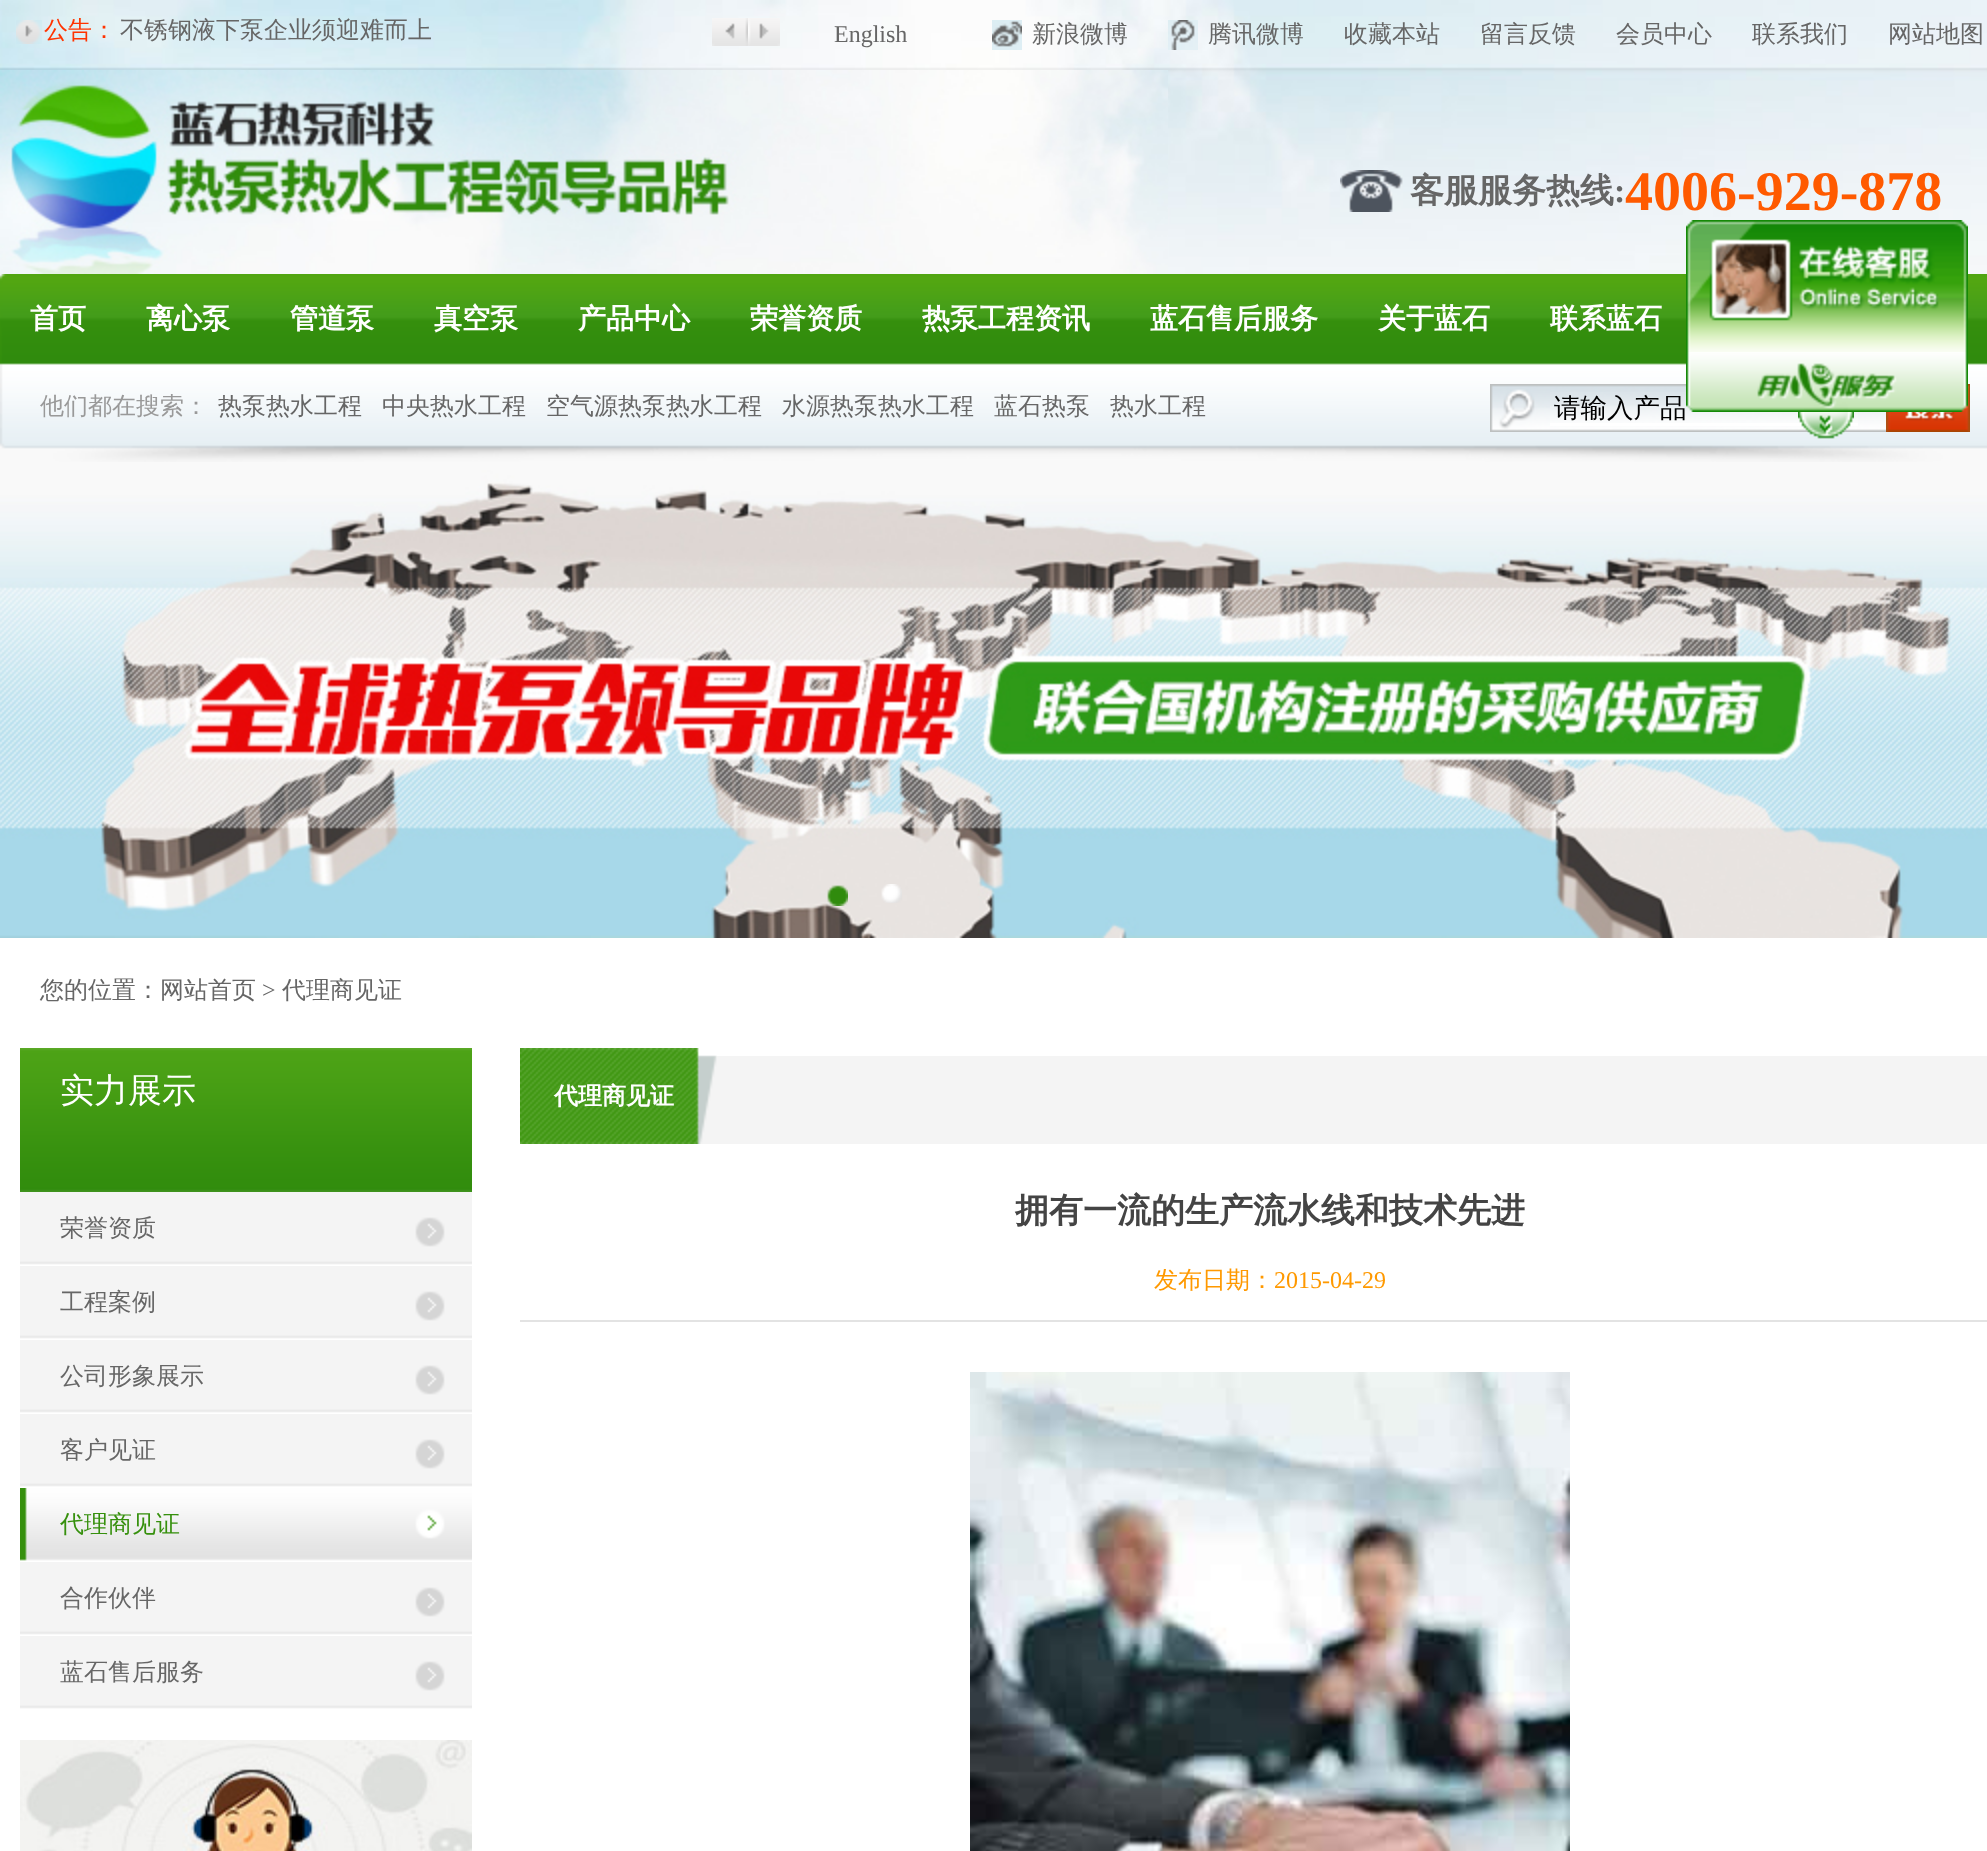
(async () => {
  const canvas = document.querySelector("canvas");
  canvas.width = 1987;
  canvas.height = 1851;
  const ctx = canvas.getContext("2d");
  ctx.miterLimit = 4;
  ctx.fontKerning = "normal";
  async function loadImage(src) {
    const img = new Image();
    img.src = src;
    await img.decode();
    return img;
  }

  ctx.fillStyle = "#ffffff";
  ctx.fillRect(0, 0, 1987, 1851);
  ctx.drawImage(await loadImage("img/1.png"), 0, 0, 1987, 470);
  ctx.drawImage(await loadImage("img/2.png"), 16, 20, 26, 24);
  ctx.drawImage(await loadImage("img/3.png"), 712, 18, 36, 28);
  ctx.drawImage(await loadImage("img/4.png"), 748, 18, 32, 28);
  ctx.drawImage(await loadImage("img/5.png"), 992, 20, 30, 30);
  ctx.drawImage(await loadImage("img/6.png"), 1168, 20, 30, 30);
  ctx.drawImage(await loadImage("img/7.png"), 0, 70, 1168, 204);
  ctx.drawImage(await loadImage("img/8.png"), 1340, 170, 63, 42);
  ctx.drawImage(await loadImage("img/9.png"), 0, 274, 1987, 188);
  ctx.drawImage(await loadImage("img/10.png"), 1490, 384, 396, 48);
  ctx.fillRect(1550, 423, 308, 3);
  ctx.drawImage(await loadImage("img/11.png"), 1550, 392, 308, 31);
  ctx.drawImage(await loadImage("img/12.png"), 1886, 384, 84, 48);
  ctx.drawImage(await loadImage("img/13.png"), 0, 470, 1987, 468);
  ctx.drawImage(await loadImage("img/14.png"), 827, 885, 21, 21);
  ctx.drawImage(await loadImage("img/15.png"), 881, 884, 21, 19);
  ctx.drawImage(await loadImage("img/16.png"), 20, 1048, 452, 144);
  ctx.fillStyle = "#f4f4f4";
  ctx.fillRect(20, 1192, 452, 469);
  ctx.drawImage(await loadImage("img/17.png"), 20, 1217, 452, 49);
  ctx.drawImage(await loadImage("img/17.png"), 20, 1291, 452, 49);
  ctx.drawImage(await loadImage("img/17.png"), 20, 1365, 452, 49);
  ctx.drawImage(await loadImage("img/17.png"), 20, 1439, 452, 49);
  ctx.drawImage(await loadImage("img/18.png"), 20, 1488, 452, 74);
  ctx.drawImage(await loadImage("img/17.png"), 20, 1587, 452, 49);
  ctx.drawImage(await loadImage("img/17.png"), 20, 1661, 452, 49);
  ctx.drawImage(await loadImage("img/19.png"), 20, 1740, 452, 111);
  ctx.fillRect(697, 1056, 1290, 88);
  ctx.drawImage(await loadImage("img/20.png"), 520, 1048, 197, 96);
  ctx.fillStyle = "#e3e3e3";
  ctx.fillRect(520, 1320, 1467, 2);
  ctx.drawImage(await loadImage("img/21.png"), 970, 1372, 600, 479);
  ctx.drawImage(await loadImage("img/22.png"), 1686, 220, 282, 132);
  ctx.drawImage(await loadImage("img/23.png"), 1686, 352, 282, 60);
  ctx.drawImage(await loadImage("img/24.png"), 1798, 412, 56, 27);
  ctx.font = "500 24px WenQuanYi Zen Hei";
  ctx.fillStyle = "#ff3300";
  ctx.fillText("公告：", 44, 38);
  ctx.fillStyle = "#666666";
  ctx.fillText("不锈钢液下泵企业须迎难而上", 120, 38);
  ctx.font = "24px Liberation Serif";
  ctx.fillText("English", 834, 42);
  ctx.font = "500 24px WenQuanYi Zen Hei";
  for (const [text, x, y] of [
    ["新浪微博", 1032, 42],
    ["腾讯微博", 1208, 42],
    ["收藏本站", 1344, 42],
    ["留言反馈", 1480, 42],
    ["会员中心", 1616, 42],
    ["联系我们", 1752, 42],
    ["网站地图", 1888, 42],
  ]) {
    ctx.fillText(text, x, y);
  }
  ctx.font = "bold 34px WenQuanYi Zen Hei";
  ctx.fillText("客服服务热线", 1410, 202);
  ctx.font = "bold 34px Liberation Serif";
  ctx.fillText(":", 1614, 202);
  ctx.font = "bold 56px Liberation Serif";
  ctx.fillStyle = "#ff5a00";
  ctx.fillText("4006-929-878", 1625, 210);
  ctx.font = "bold 28px WenQuanYi Zen Hei";
  ctx.fillStyle = "#ffffff";
  for (const [text, x, y] of [
    ["首页", 30, 328],
    ["离心泵", 146, 328],
    ["管道泵", 290, 328],
    ["真空泵", 434, 328],
    ["产品中心", 578, 328],
    ["荣誉资质", 750, 328],
    ["热泵工程资讯", 922, 328],
    ["蓝石售后服务", 1150, 328],
    ["关于蓝石", 1378, 328],
    ["联系蓝石", 1550, 328],
  ]) {
    ctx.fillText(text, x, y);
  }
  ctx.font = "500 24px WenQuanYi Zen Hei";
  ctx.fillStyle = "#999999";
  ctx.fillText("他们都在搜索：", 40, 414);
  ctx.fillStyle = "#666666";
  for (const [text, x, y] of [
    ["热泵热水工程", 218, 414],
    ["中央热水工程", 382, 414],
    ["空气源热泵热水工程", 546, 414],
    ["水源热泵热水工程", 782, 414],
    ["蓝石热泵", 994, 414],
    ["热水工程", 1110, 414],
  ]) {
    ctx.fillText(text, x, y);
  }
  ctx.font = "500 26.5px WenQuanYi Zen Hei";
  ctx.fillStyle = "#000000";
  ctx.fillText("请输入产品", 1554, 417);
  ctx.font = "500 24px WenQuanYi Zen Hei";
  ctx.fillStyle = "#666666";
  ctx.fillText("您的位置：网站首页", 40, 998);
  ctx.font = "24px Liberation Serif";
  ctx.fillText(">", 262, 998);
  ctx.font = "500 24px WenQuanYi Zen Hei";
  ctx.fillText("代理商见证", 282, 998);
  ctx.font = "500 34px WenQuanYi Zen Hei";
  ctx.fillStyle = "#ffffff";
  ctx.fillText("实力展示", 60, 1102);
  ctx.font = "500 24px WenQuanYi Zen Hei";
  ctx.fillStyle = "#666666";
  for (const [text, x, y] of [
    ["荣誉资质", 60, 1236],
    ["工程案例", 60, 1310],
    ["公司形象展示", 60, 1384],
    ["客户见证", 60, 1458],
  ]) {
    ctx.fillText(text, x, y);
  }
  ctx.fillStyle = "#36900d";
  ctx.fillText("代理商见证", 60, 1532);
  ctx.fillStyle = "#666666";
  ctx.fillText("合作伙伴", 60, 1606);
  ctx.fillText("蓝石售后服务", 60, 1680);
  ctx.font = "bold 24px WenQuanYi Zen Hei";
  ctx.fillStyle = "#ffffff";
  ctx.fillText("代理商见证", 554, 1104);
  ctx.font = "bold 34px WenQuanYi Zen Hei";
  ctx.fillStyle = "#444444";
  ctx.fillText("拥有一流的生产流水线和技术先进", 1015, 1222);
  ctx.font = "500 24px WenQuanYi Zen Hei";
  ctx.fillStyle = "#ff9900";
  ctx.fillText("发布日期：", 1154, 1288);
  ctx.font = "24px Liberation Serif";
  ctx.fillText("2015-04-29", 1274, 1288);
})();
